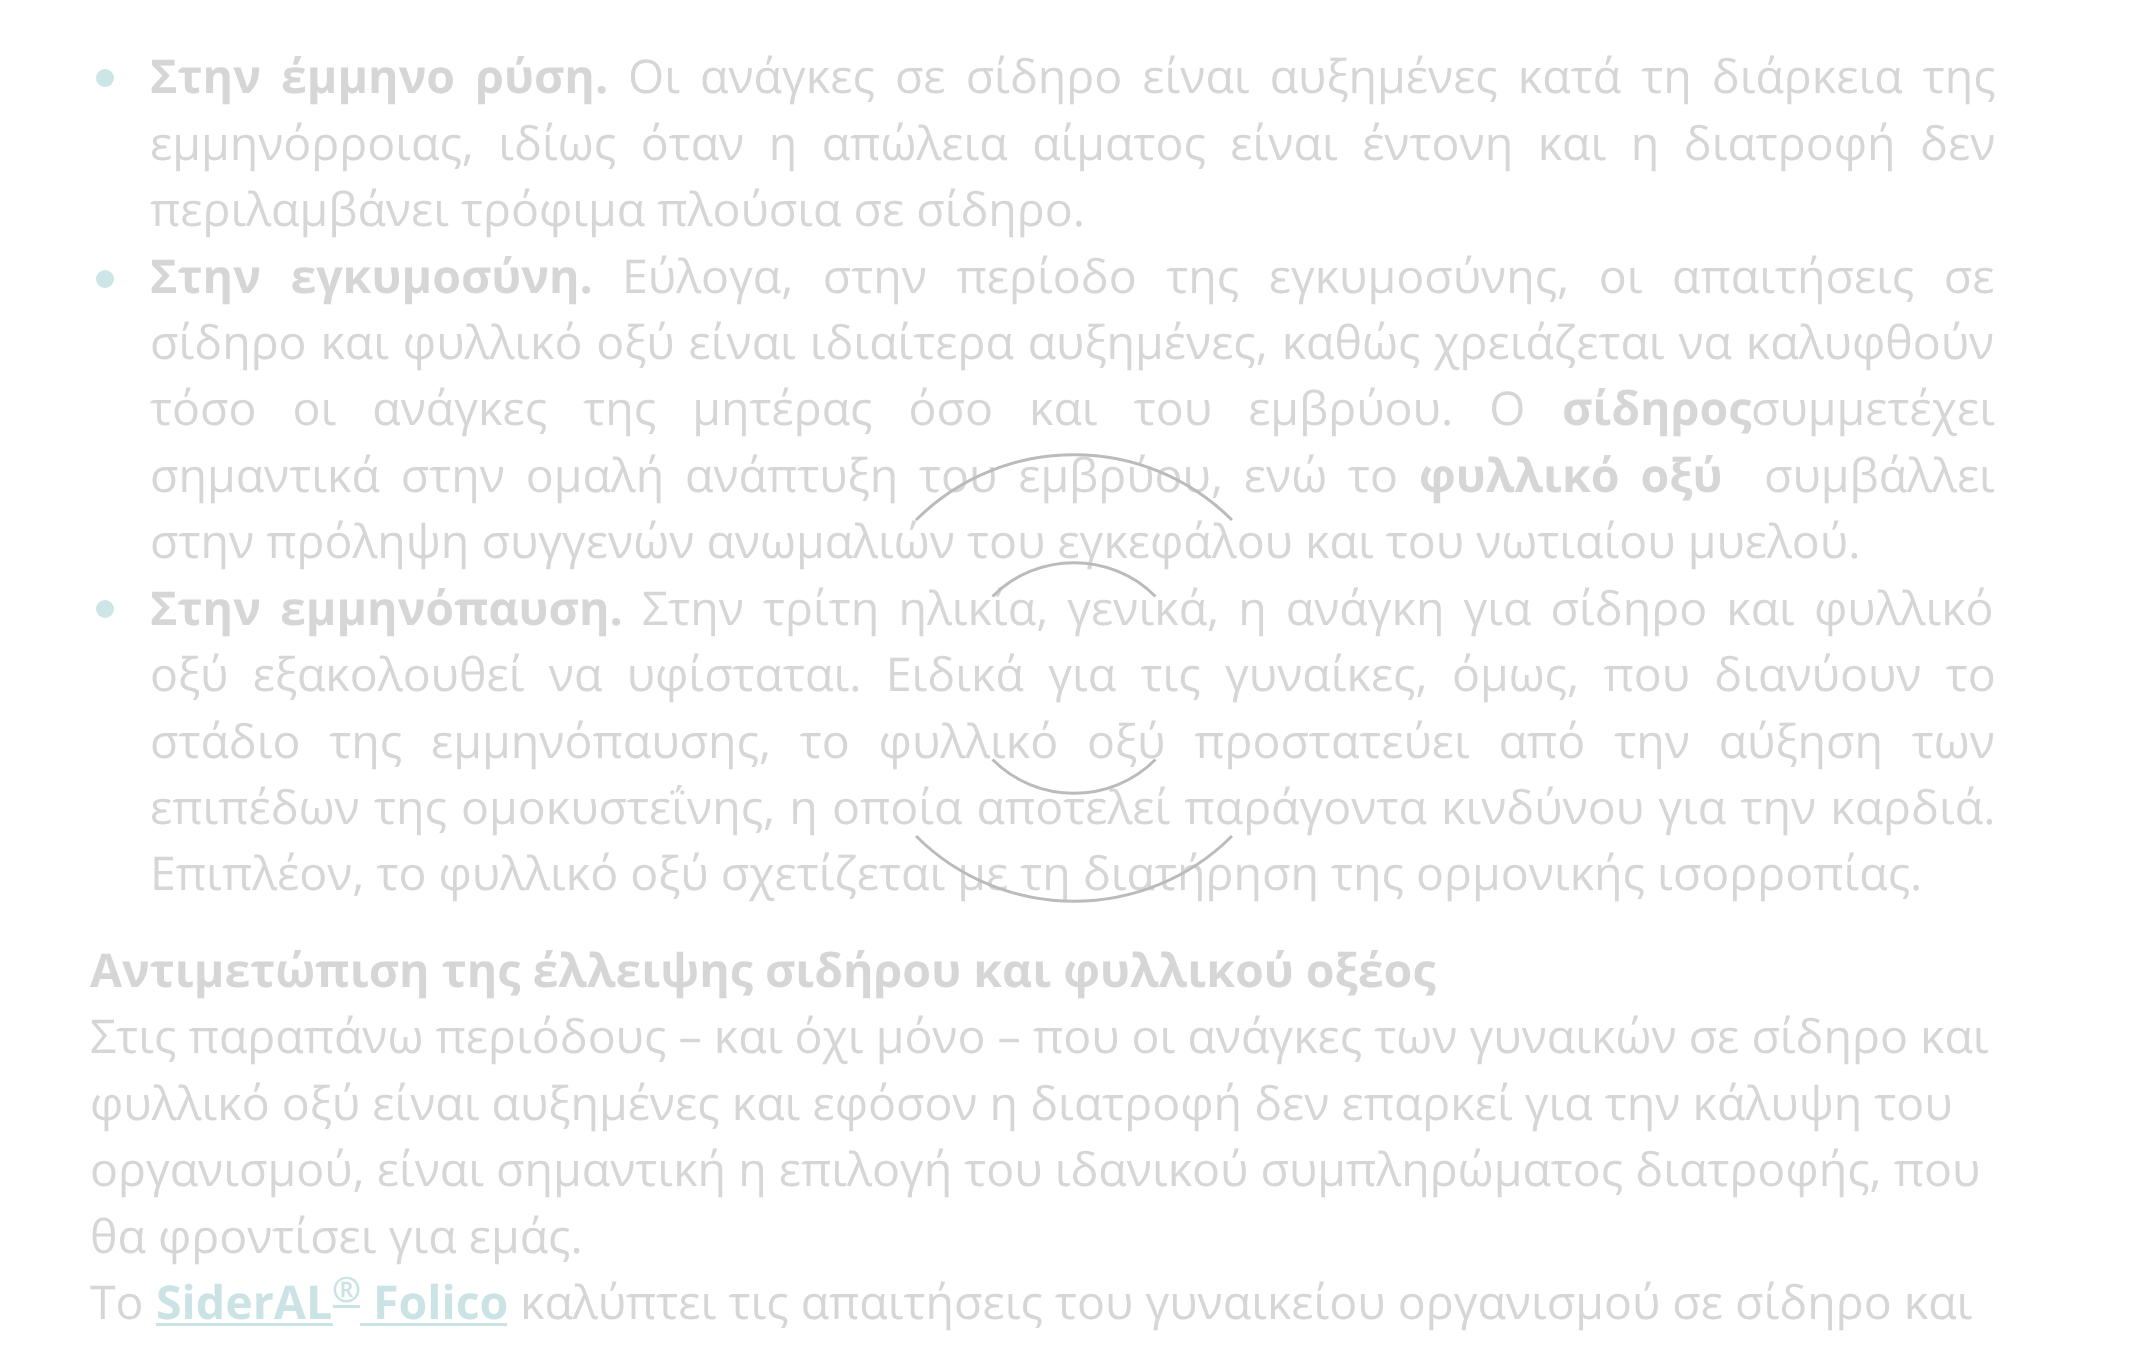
(async () => {
  const canvas = document.querySelector("canvas");
  canvas.width = 2143;
  canvas.height = 1354;
  const ctx = canvas.getContext("2d");
  ctx.miterLimit = 4;
  ctx.fontKerning = "normal";
  let path;

  ctx.fillStyle = "#ffffff";
  ctx.fillRect(0, 0, 2143, 1354);
  ctx.fillStyle = "#cce5e7";
  ctx.beginPath();
  ctx.arc(105, 78, 9, 0, Math.PI * 2);
  ctx.fill();
  ctx.beginPath();
  ctx.arc(105, 279, 9, 0, Math.PI * 2);
  ctx.fill();
  ctx.beginPath();
  ctx.arc(105, 609, 9, 0, Math.PI * 2);
  ctx.fill();
  for (const [x, y, w, h, color] of [
    [156, 1323, 177, 3, "#cce3e6"],
    [333, 1305, 27, 3, "#cce3e6"],
    [360, 1323, 147, 3, "#cce3e6"],
  ]) {
    ctx.fillStyle = color;
    ctx.fillRect(x, y, w, h);
  }
  ctx.wordSpacing = "8px";
  ctx.font = "bold 46.5px Open Sans";
  ctx.fillStyle = "#d6d6d6";
  ctx.fillText("Στην έμμηνο ρύση.", 150, 93);
  ctx.font = "46.5px Open Sans";
  ctx.fillText("Οι ανάγκες σε σίδηρο είναι αυξημένες κατά τη διάρκεια της", 628, 93);
  ctx.wordSpacing = "12.4px";
  ctx.fillText("εμμηνόρροιας, ιδίως όταν η απώλεια αίματος είναι έντονη και η διατροφή δεν", 150, 160);
  ctx.wordSpacing = "0px";
  ctx.fillText("περιλαμβάνει τρόφιμα πλούσια σε σίδηρο.", 150, 226);
  ctx.wordSpacing = "17.5px";
  ctx.font = "bold 46.5px Open Sans";
  ctx.fillText("Στην εγκυμοσύνη.", 150, 293);
  ctx.font = "46.5px Open Sans";
  ctx.fillText("Εύλογα, στην περίοδο της εγκυμοσύνης, οι απαιτήσεις σε", 622, 293);
  ctx.wordSpacing = "1.75px";
  ctx.fillText("σίδηρο και φυλλικό οξύ είναι ιδιαίτερα αυξημένες, καθώς χρειάζεται να καλυφθούν", 150, 359);
  ctx.wordSpacing = "24px";
  ctx.fillText("τόσο οι ανάγκες της μητέρας όσο και του εμβρύου. Ο", 150, 425);
  ctx.wordSpacing = "0px";
  ctx.font = "bold 46.5px Open Sans";
  ctx.fillText("σίδηρος", 1562, 425);
  ctx.font = "46.5px Open Sans";
  ctx.fillText("συμμετέχει", 1751, 425);
  ctx.wordSpacing = "8.75px";
  ctx.fillText("σημαντικά στην ομαλή ανάπτυξη του εμβρύου, ενώ το", 150, 492);
  ctx.font = "bold 46.5px Open Sans";
  ctx.fillText("φυλλικό οξύ", 1419, 492);
  ctx.wordSpacing = "0px";
  ctx.font = "46.5px Open Sans";
  ctx.fillText("συμβάλλει", 1764, 492);
  ctx.fillText("στην πρόληψη συγγενών ανωμαλιών του εγκεφάλου και του νωτιαίου μυελού.", 150, 558);
  ctx.wordSpacing = "7px";
  ctx.font = "bold 46.5px Open Sans";
  ctx.fillText("Στην εμμηνόπαυση.", 150, 625);
  ctx.font = "46.5px Open Sans";
  ctx.fillText("Στην τρίτη ηλικία, γενικά, η ανάγκη για σίδηρο και φυλλικό", 642, 625);
  ctx.wordSpacing = "12.25px";
  ctx.fillText("οξύ εξακολουθεί να υφίσταται. Ειδικά για τις γυναίκες, όμως, που διανύουν το", 150, 691);
  ctx.wordSpacing = "16.75px";
  ctx.fillText("στάδιο της εμμηνόπαυσης, το φυλλικό οξύ προστατεύει από την αύξηση των", 150, 758);
  ctx.wordSpacing = "2.1px";
  ctx.fillText("επιπέδων της ομοκυστεΐνης, η οποία αποτελεί παράγοντα κινδύνου για την καρδιά.", 150, 824);
  ctx.wordSpacing = "0px";
  ctx.fillText("Επιπλέον, το φυλλικό οξύ σχετίζεται με τη διατήρηση της ορμονικής ισορροπίας.", 150, 890);
  ctx.font = "bold 46.5px Open Sans";
  ctx.fillText("Αντιμετώπιση της έλλειψης σιδήρου και φυλλικού οξέος", 90, 987);
  ctx.font = "46.5px Open Sans";
  for (const [text, x, y] of [
    ["Στις παραπάνω περιόδους – και όχι μόνο – που οι ανάγκες των γυναικών σε σίδηρο και", 90, 1053],
    ["φυλλικό οξύ είναι αυξημένες και εφόσον η διατροφή δεν επαρκεί για την κάλυψη του", 90, 1120],
    ["οργανισμού, είναι σημαντική η επιλογή του ιδανικού συμπληρώματος διατροφής, που", 90, 1186],
    ["θα φροντίσει για εμάς.", 90, 1253],
    ["Το", 90, 1319],
  ]) {
    ctx.fillText(text, x, y);
  }
  ctx.font = "bold 46.5px Open Sans";
  ctx.fillStyle = "#cce3e6";
  ctx.fillText("SiderAL", 156, 1319);
  ctx.font = "bold 35px Open Sans";
  ctx.fillText("®", 332, 1302);
  ctx.font = "bold 46.5px Open Sans";
  ctx.fillText("Folico", 373, 1319);
  ctx.font = "46.5px Open Sans";
  ctx.fillStyle = "#d6d6d6";
  ctx.fillText("καλύπτει τις απαιτήσεις του γυναικείου οργανισμού σε σίδηρο και", 520, 1319);
  path = new Path2D("M916 520C1003 433 1145 433 1232 520");
  ctx.strokeStyle = "#bbbbbb";
  ctx.lineWidth = 3;
  ctx.stroke(path);
  path = new Path2D("M1232 836C1145 923 1003 923 916 836");
  ctx.stroke(path);
  path = new Path2D("M992.5 596.5C1037 551.5 1111 551.5 1155.5 596.5");
  ctx.stroke(path);
  path = new Path2D("M1155.5 759.5C1111 804.5 1037 804.5 992.5 759.5");
  ctx.stroke(path);
})();
